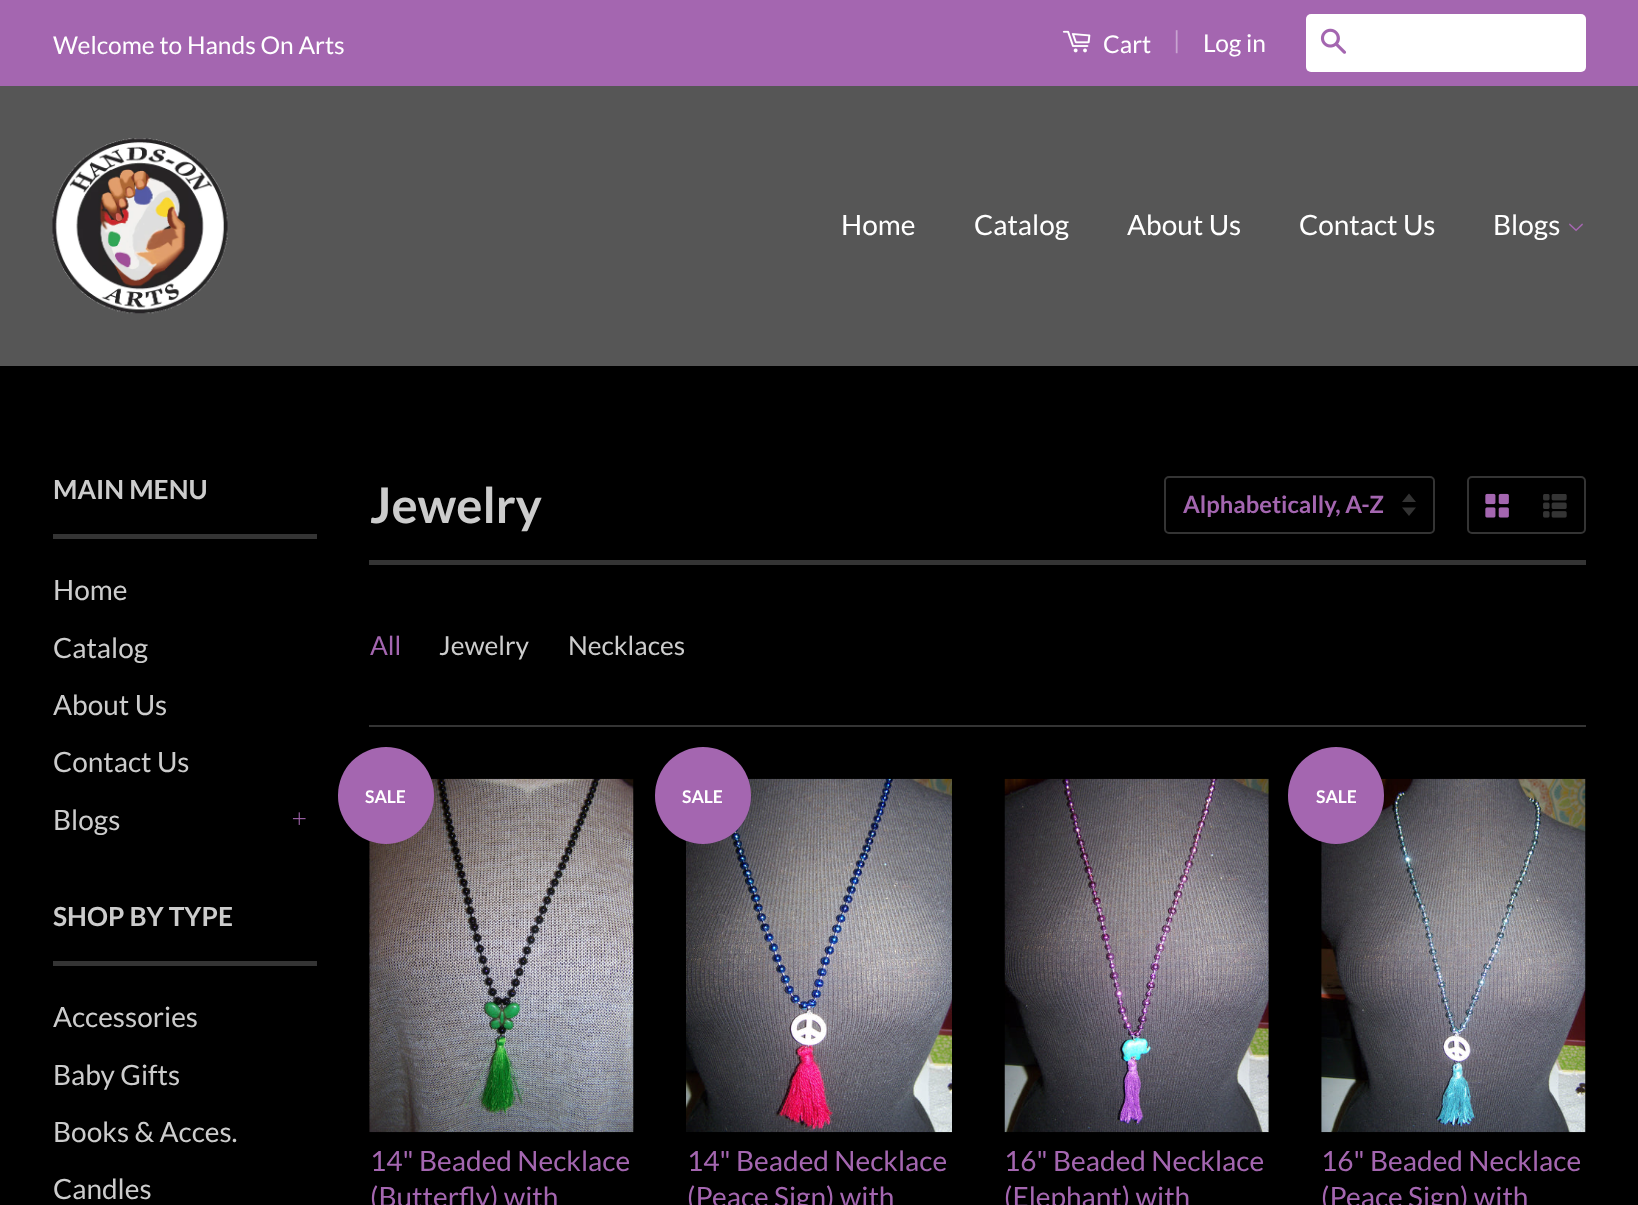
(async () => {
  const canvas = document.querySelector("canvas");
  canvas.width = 1638;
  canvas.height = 1205;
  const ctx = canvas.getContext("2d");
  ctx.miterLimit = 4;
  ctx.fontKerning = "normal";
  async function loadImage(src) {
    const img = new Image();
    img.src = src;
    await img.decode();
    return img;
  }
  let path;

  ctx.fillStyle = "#000000";
  ctx.fillRect(0, 0, 1638, 1205);
  ctx.fillStyle = "#a466b0";
  ctx.fillRect(0, 0, 1638, 86);
  ctx.drawImage(await loadImage("img/1.png"), 1062, 30, 29, 23);
  ctx.fillStyle = "#ffffff";
  ctx.beginPath();
  ctx.roundRect(1306, 14, 280, 58, 5);
  ctx.fill();
  ctx.drawImage(await loadImage("img/2.png"), 1320, 28, 27, 26);
  ctx.fillStyle = "#565656";
  ctx.fillRect(0, 86, 1638, 280);
  ctx.drawImage(await loadImage("img/3.png"), 52, 138, 176, 176);
  ctx.drawImage(await loadImage("img/4.png"), 1569, 223, 14, 9);
  ctx.fillStyle = "#343434";
  ctx.fillRect(53, 534, 264, 5);
  ctx.drawImage(await loadImage("img/5.png"), 292, 812, 14, 13);
  ctx.fillRect(53, 961, 264, 5);
  ctx.fillRect(369, 560, 1217, 5);
  ctx.fillStyle = "#333333";
  path = new Path2D("M1402 507.5L1409 516L1416 507.5ZM1409 493.5L1402 502H1416Z");
  ctx.fill(path);
  ctx.beginPath();
  ctx.roundRect(1165, 477, 269, 56, 4);
  ctx.strokeStyle = "#343434";
  ctx.lineWidth = 2;
  ctx.stroke();
  ctx.beginPath();
  ctx.roundRect(1468, 477, 117, 56, 4);
  ctx.stroke();
  ctx.drawImage(await loadImage("img/6.png"), 1485, 493, 24, 25);
  ctx.drawImage(await loadImage("img/7.png"), 1543, 494, 24, 24);
  ctx.fillStyle = "#343434";
  ctx.fillRect(369, 725, 1217, 2);
  ctx.drawImage(await loadImage("img/8.png"), 369, 778, 265, 355);
  ctx.fillStyle = "#a466b0";
  ctx.beginPath();
  ctx.roundRect(338, 747, 96, 97, 48);
  ctx.fill();
  ctx.drawImage(await loadImage("img/9.png"), 686, 778, 266, 355);
  ctx.beginPath();
  ctx.roundRect(655, 747, 96, 97, 48);
  ctx.fill();
  ctx.drawImage(await loadImage("img/10.png"), 1004, 778, 265, 355);
  ctx.drawImage(await loadImage("img/11.png"), 1321, 778, 265, 355);
  ctx.beginPath();
  ctx.roundRect(1288, 747, 96, 97, 48);
  ctx.fill();
  ctx.font = "24.5px Lato";
  ctx.fillStyle = "#ffffff";
  ctx.fillText("Welcome to Hands On Arts", 53, 54);
  ctx.fillText("Cart", 1103, 53);
  ctx.fillStyle = "#c8a3d0";
  ctx.fillText("|", 1173, 49);
  ctx.fillStyle = "#ffffff";
  ctx.fillText("Log in", 1203, 52);
  ctx.font = "28px Lato";
  for (const [text, x, y] of [
    ["Home", 841, 235],
    ["Catalog", 974, 235],
    ["About Us", 1127, 235],
    ["Contact Us", 1299, 235],
    ["Blogs", 1493, 235],
  ]) {
    ctx.fillText(text, x, y);
  }
  ctx.font = "bold 26.25px Lato";
  ctx.fillStyle = "#cccccc";
  ctx.fillText("MAIN MENU", 53, 499);
  ctx.font = "28px Lato";
  for (const [text, x, y] of [
    ["Home", 53, 600],
    ["Catalog", 53, 658],
    ["About Us", 53, 715],
    ["Contact Us", 53, 772],
    ["Blogs", 53, 830],
  ]) {
    ctx.fillText(text, x, y);
  }
  ctx.font = "bold 26.25px Lato";
  ctx.fillText("SHOP BY TYPE", 53, 926);
  ctx.font = "28px Lato";
  for (const [text, x, y] of [
    ["Accessories", 53, 1027],
    ["Baby Gifts", 53, 1085],
    ["Books & Acces.", 53, 1142],
    ["Candles", 53, 1199],
  ]) {
    ctx.fillText(text, x, y);
  }
  ctx.font = "bold 49px Lato";
  ctx.fillText("Jewelry", 370, 523);
  ctx.font = "bold 23.75px Lato";
  ctx.fillStyle = "#a466b0";
  ctx.fillText("Alphabetically, A-Z", 1183, 513);
  ctx.font = "26.25px Lato";
  ctx.fillText("All", 370, 655);
  ctx.fillStyle = "#cccccc";
  ctx.fillText("Jewelry", 439, 655);
  ctx.fillText("Necklaces", 568, 655);
  ctx.font = "bold 17.5px Lato";
  ctx.fillStyle = "#ffffff";
  ctx.fillText("SALE", 365, 803);
  ctx.font = "28px Lato";
  ctx.fillStyle = "#a466b0";
  ctx.fillText("14\" Beaded Necklace", 370, 1171);
  ctx.fillText("(Butterfly) with", 370, 1207);
  ctx.font = "bold 17.5px Lato";
  ctx.fillStyle = "#ffffff";
  ctx.fillText("SALE", 682, 803);
  ctx.font = "28px Lato";
  ctx.fillStyle = "#a466b0";
  for (const [text, x, y] of [
    ["14\" Beaded Necklace", 687, 1171],
    ["(Peace Sign) with", 687, 1207],
    ["16\" Beaded Necklace", 1004, 1171],
    ["(Elephant) with", 1004, 1207],
  ]) {
    ctx.fillText(text, x, y);
  }
  ctx.font = "bold 17.5px Lato";
  ctx.fillStyle = "#ffffff";
  ctx.fillText("SALE", 1316, 803);
  ctx.font = "28px Lato";
  ctx.fillStyle = "#a466b0";
  ctx.fillText("16\" Beaded Necklace", 1321, 1171);
  ctx.fillText("(Peace Sign) with", 1321, 1207);
})();
